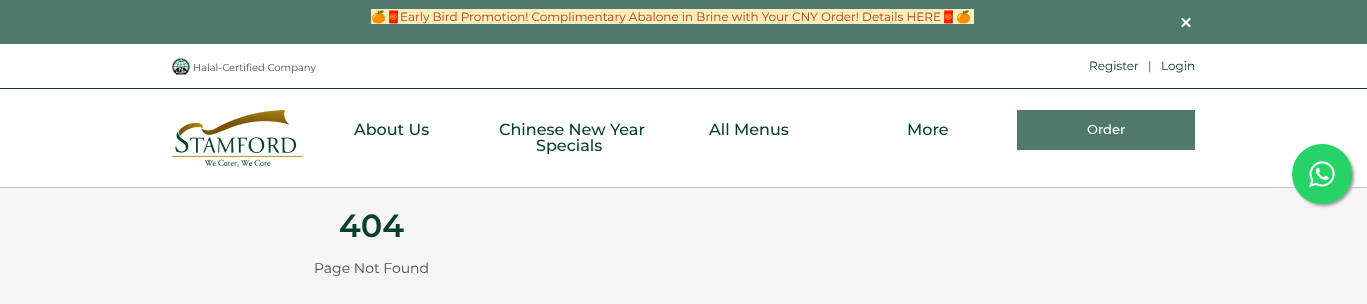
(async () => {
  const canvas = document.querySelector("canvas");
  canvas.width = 1367;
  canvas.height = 304;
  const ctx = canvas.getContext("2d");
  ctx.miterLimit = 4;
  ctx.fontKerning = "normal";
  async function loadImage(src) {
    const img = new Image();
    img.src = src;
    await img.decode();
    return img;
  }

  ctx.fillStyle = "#ffffff";
  ctx.fillRect(0, 0, 1367, 304);
  ctx.fillStyle = "#51796b";
  ctx.fillRect(0, 0, 1367, 44);
  ctx.fillStyle = "#fbeeb8";
  ctx.fillRect(371, 9, 603, 15);
  ctx.drawImage(await loadImage("img/1.png"), 1181, 17, 10, 11);
  ctx.drawImage(await loadImage("img/2.png"), 172, 58, 18, 17);
  ctx.fillStyle = "#07402d";
  ctx.fillRect(0, 88, 1367, 1);
  ctx.fillStyle = "#cec7bf";
  ctx.fillRect(0, 187, 1367, 1);
  ctx.drawImage(await loadImage("img/3.png"), 172, 110, 131, 57);
  ctx.fillStyle = "#51796b";
  ctx.fillRect(1017, 110, 178, 40);
  ctx.fillStyle = "#f5f5f5";
  ctx.fillRect(0, 188, 1367, 116);
  ctx.fillStyle = "#999999";
  ctx.filter = "blur(1.5px)";
  ctx.beginPath();
  ctx.roundRect(1294, 146, 60, 60, 30);
  ctx.fill();
  ctx.filter = "none";
  ctx.fillStyle = "#25d366";
  ctx.beginPath();
  ctx.arc(1322, 174, 30, 0, Math.PI * 2);
  ctx.fill();
  ctx.drawImage(await loadImage("img/4.png"), 1309, 161, 26, 27);
  ctx.font = "12px Noto Color Emoji";
  ctx.fillStyle = "#ba372a";
  ctx.fillText("🍊🧧", 371, 21);
  ctx.font = "12px Montserrat";
  ctx.fillText("Early Bird Promotion! Complimentary Abalone in Brine with Your CNY Order! Details HERE", 400, 21);
  ctx.font = "12px Noto Color Emoji";
  ctx.fillText("🧧🍊", 941, 21);
  ctx.font = "10px Montserrat";
  ctx.fillStyle = "#4b4b4b";
  ctx.fillText("Halal-Certified Company", 193, 71);
  ctx.font = "12px Montserrat";
  ctx.fillStyle = "#07402d";
  ctx.fillText("Register", 1089, 70);
  ctx.fillStyle = "#4b4b4b";
  ctx.fillText("|", 1148, 70);
  ctx.fillStyle = "#07402d";
  ctx.fillText("Login", 1161, 70);
  ctx.font = "500 16px Montserrat";
  for (const [text, x, y] of [
    ["About Us", 354, 135],
    ["Chinese New Year", 499, 135],
    ["Specials", 536, 151],
    ["All Menus", 709, 135],
    ["More", 907, 135],
  ]) {
    ctx.fillText(text, x, y);
  }
  ctx.font = "500 13px Montserrat";
  ctx.fillStyle = "#ffffff";
  ctx.fillText("Order", 1087, 134);
  ctx.font = "600 32px Montserrat";
  ctx.fillStyle = "#07402d";
  ctx.fillText("404", 339, 237);
  ctx.font = "14px Montserrat";
  ctx.fillStyle = "#4b4b4b";
  ctx.fillText("Page Not Found", 314, 273);
})();
